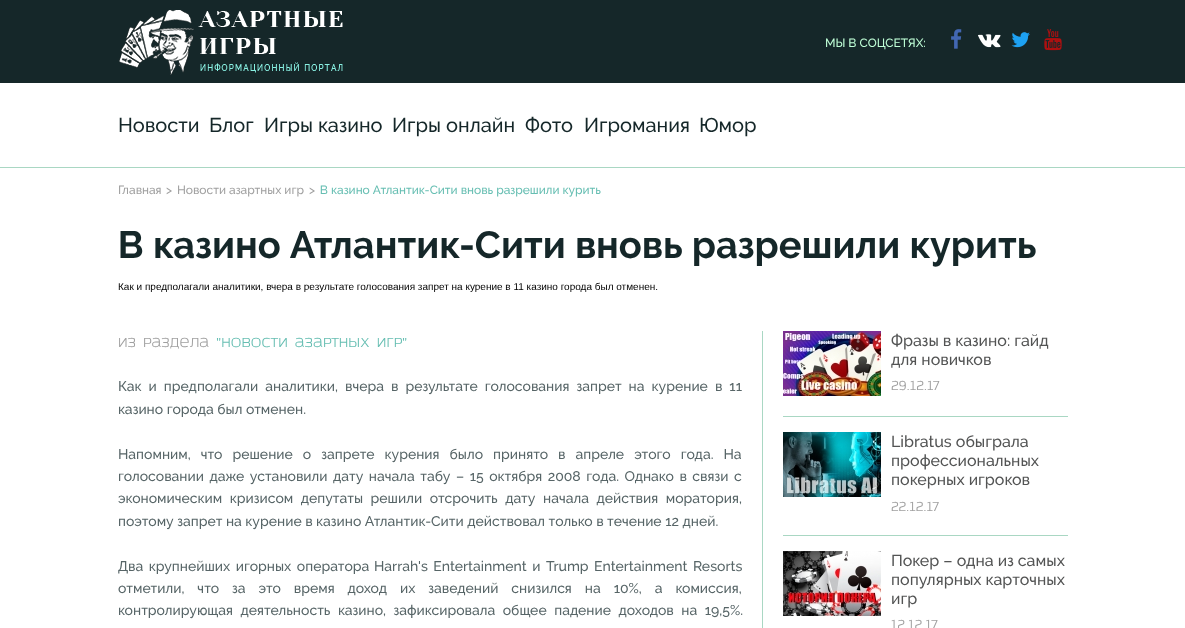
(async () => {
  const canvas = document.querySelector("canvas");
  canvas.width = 1185;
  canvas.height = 628;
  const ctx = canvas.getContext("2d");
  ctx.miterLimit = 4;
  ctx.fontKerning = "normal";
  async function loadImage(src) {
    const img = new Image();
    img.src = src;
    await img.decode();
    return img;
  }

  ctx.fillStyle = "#ffffff";
  ctx.fillRect(0, 0, 1185, 628);
  ctx.fillStyle = "#152729";
  ctx.fillRect(0, 0, 1185, 83);
  ctx.fillStyle = "#a9d7c3";
  ctx.fillRect(0, 167, 1185, 1);
  ctx.drawImage(await loadImage("img/1.png"), 119, 10, 224, 65);
  ctx.drawImage(await loadImage("img/2.png"), 951, 29, 11, 20);
  ctx.drawImage(await loadImage("img/3.png"), 978, 34, 23, 14);
  ctx.drawImage(await loadImage("img/4.png"), 1011, 32, 19, 16);
  ctx.drawImage(await loadImage("img/5.png"), 1044, 29, 18, 22);
  ctx.fillRect(762, 331, 1, 297);
  ctx.fillRect(783, 416, 285, 1);
  ctx.drawImage(await loadImage("img/6.png"), 783, 331, 98, 65);
  ctx.fillRect(783, 535, 285, 1);
  ctx.drawImage(await loadImage("img/7.png"), 783, 432, 98, 65);
  ctx.drawImage(await loadImage("img/8.png"), 783, 551, 98, 65);
  ctx.font = "500 12px Raleway";
  ctx.fillStyle = "#bfffd7";
  ctx.fillText("МЫ В СОЦСЕТЯХ:", 825, 47);
  ctx.font = "500 20px Raleway";
  ctx.fillStyle = "#152729";
  for (const [text, x, y] of [
    ["Новости", 118, 132],
    ["Блог", 209, 132],
    ["Игры казино", 264, 132],
    ["Игры онлайн", 392, 132],
    ["Фото", 525, 132],
    ["Игромания", 584, 132],
    ["Юмор", 699, 132],
  ]) {
    ctx.fillText(text, x, y);
  }
  ctx.font = "500 12px Raleway";
  ctx.fillStyle = "#a0a0a0";
  for (const [text, x, y] of [
    ["Главная", 118, 194],
    [">", 166, 194],
    ["Новости азартных игр", 177, 194],
    [">", 309, 194],
  ]) {
    ctx.fillText(text, x, y);
  }
  ctx.fillStyle = "#66beb2";
  ctx.fillText("В казино Атлантик-Сити вновь разрешили курить", 320, 194);
  ctx.font = "bold 38px Raleway";
  ctx.fillStyle = "#152729";
  ctx.fillText("В казино Атлантик-Сити вновь разрешили курить", 118, 258);
  ctx.font = "10px Liberation Sans";
  ctx.fillStyle = "#000000";
  ctx.fillText("Как и предполагали аналитики, вчера в результате голосования запрет на курение в 11 казино города был отменен.", 118, 290);
  ctx.font = "14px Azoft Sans";
  ctx.fillStyle = "#a0a0a0";
  ctx.fillText("из раздела", 118, 347);
  ctx.fillStyle = "#66beb2";
  ctx.fillText("\"Новости азартных игр\"", 216, 347);
  ctx.wordSpacing = "3.5px";
  ctx.font = "500 14px Raleway";
  ctx.fillStyle = "#576567";
  ctx.fillText("Как и предполагали аналитики, вчера в результате голосования запрет на курение в 11", 118, 391);
  ctx.wordSpacing = "0px";
  ctx.fillText("казино города был отменен.", 118, 414);
  ctx.wordSpacing = "6.5px";
  ctx.fillText("Напомним, что решение о запрете курения было принято в апреле этого года. На", 118, 459);
  ctx.wordSpacing = "2px";
  ctx.fillText("голосовании даже установили дату начала табу – 15 октября 2008 года. Однако в связи с", 118, 481);
  ctx.wordSpacing = "4px";
  ctx.fillText("экономическим кризисом депутаты решили отсрочить дату начала действия моратория,", 118, 503);
  ctx.wordSpacing = "0px";
  ctx.fillText("поэтому запрет на курение в казино Атлантик-Сити действовал только в течение 12 дней.", 118, 526);
  ctx.wordSpacing = "2px";
  ctx.fillText("Два крупнейших игорных оператора", 118, 571);
  ctx.fillText("Harrah's Entertainment и Trump Entertainment Resorts", 374, 571);
  ctx.wordSpacing = "9.4px";
  ctx.fillText("отметили, что за это время доход их заведений снизился на 10%, а комиссия,", 118, 593);
  ctx.wordSpacing = "4px";
  ctx.fillText("контролирующая деятельность казино, зафиксировала общее падение доходов на 19,5%.", 118, 615);
  ctx.wordSpacing = "0px";
  ctx.font = "500 16px Raleway";
  ctx.fillStyle = "#535454";
  ctx.fillText("Фразы в казино: гайд", 891, 346);
  ctx.fillText("для новичков", 891, 365);
  ctx.font = "14px Azoft Sans";
  ctx.fillStyle = "#a0a0a0";
  ctx.fillText("29.12.17", 891, 390);
  ctx.font = "500 16px Raleway";
  ctx.fillStyle = "#535454";
  for (const [text, x, y] of [
    ["Libratus обыграла", 891, 447],
    ["профессиональных", 891, 466],
    ["покерных игроков", 891, 485],
  ]) {
    ctx.fillText(text, x, y);
  }
  ctx.font = "14px Azoft Sans";
  ctx.fillStyle = "#a0a0a0";
  ctx.fillText("22.12.17", 891, 511);
  ctx.font = "500 16px Raleway";
  ctx.fillStyle = "#535454";
  for (const [text, x, y] of [
    ["Покер – одна из самых", 891, 566],
    ["популярных карточных", 891, 585],
    ["игр", 891, 604],
  ]) {
    ctx.fillText(text, x, y);
  }
  ctx.font = "14px Azoft Sans";
  ctx.fillStyle = "#a0a0a0";
  ctx.fillText("12.12.17", 891, 629);
})();
